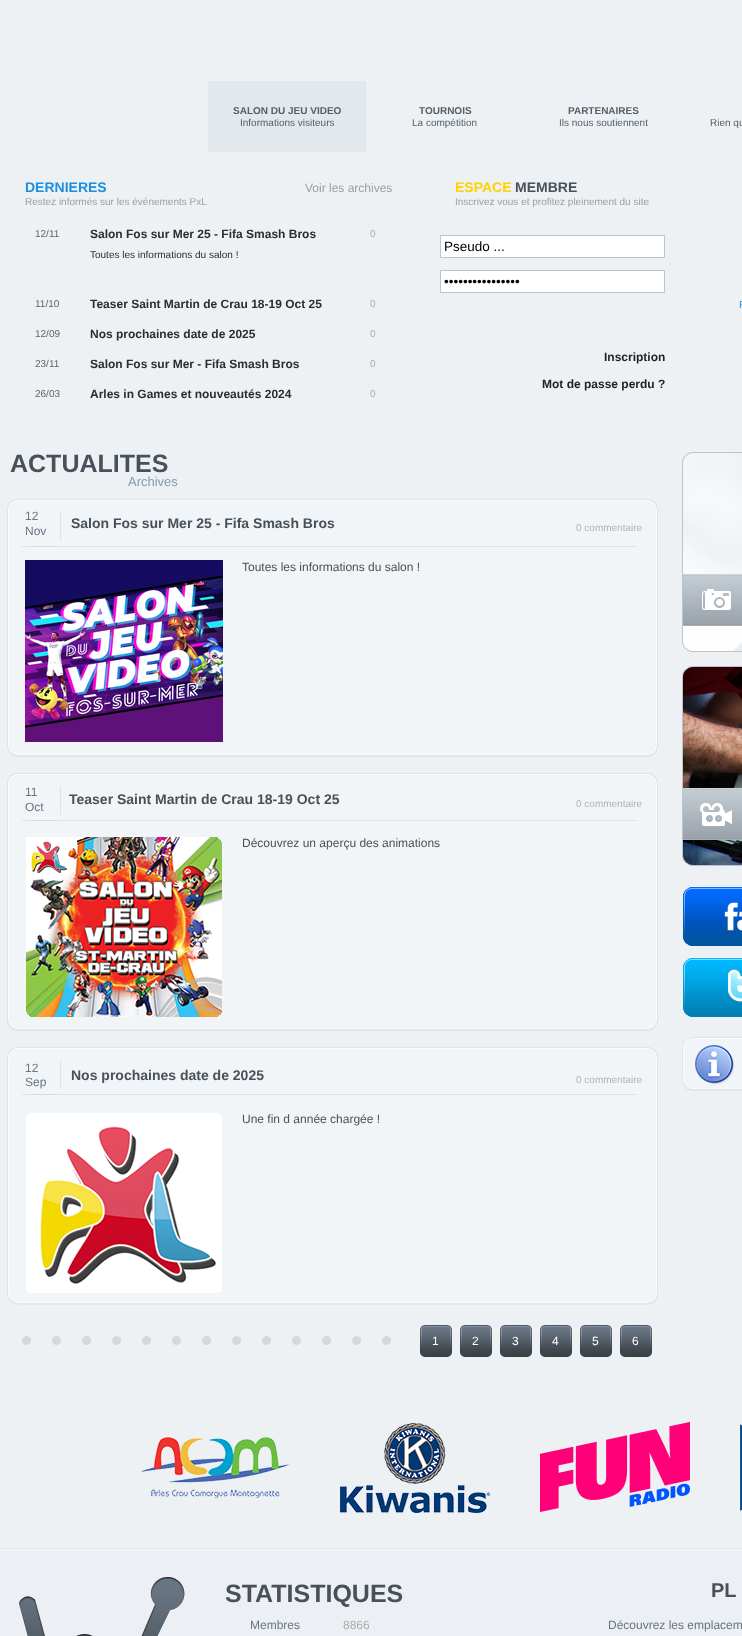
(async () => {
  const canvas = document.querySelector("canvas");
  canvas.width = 742;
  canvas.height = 1636;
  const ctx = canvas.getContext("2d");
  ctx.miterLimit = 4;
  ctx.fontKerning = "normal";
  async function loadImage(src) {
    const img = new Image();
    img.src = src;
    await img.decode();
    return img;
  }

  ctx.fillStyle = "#edf1f4";
  ctx.fillRect(0, 0, 742, 1636);
  ctx.fillStyle = "#e2e8ec";
  ctx.fillRect(208, 81, 158, 71);
  ctx.fillStyle = "#ffffff";
  ctx.beginPath();
  ctx.rect(440.5, 235.5, 224, 22);
  ctx.fill();
  ctx.strokeStyle = "#c0c4c7";
  ctx.stroke();
  ctx.beginPath();
  ctx.rect(440.5, 270.5, 224, 22);
  ctx.fill();
  ctx.stroke();
  ctx.drawImage(await loadImage("img/1.png"), 7, 499, 651, 806);
  ctx.drawImage(await loadImage("img/2.png"), 25, 560, 198, 182);
  ctx.drawImage(await loadImage("img/3.png"), 26, 837, 196, 180);
  ctx.drawImage(await loadImage("img/4.png"), 26, 1113, 196, 180);
  ctx.drawImage(await loadImage("img/5.png"), 22, 1336, 369, 9);
  ctx.drawImage(await loadImage("img/6.png"), 420, 1325, 32, 32);
  ctx.drawImage(await loadImage("img/6.png"), 460, 1325, 32, 32);
  ctx.drawImage(await loadImage("img/6.png"), 500, 1325, 32, 32);
  ctx.drawImage(await loadImage("img/6.png"), 540, 1325, 32, 32);
  ctx.drawImage(await loadImage("img/6.png"), 580, 1325, 32, 32);
  ctx.drawImage(await loadImage("img/6.png"), 620, 1325, 32, 32);
  ctx.drawImage(await loadImage("img/7.png"), 682, 452, 60, 639);
  ctx.drawImage(await loadImage("img/8.png"), 683, 887, 59, 59);
  ctx.drawImage(await loadImage("img/9.png"), 683, 958, 59, 59);
  ctx.drawImage(await loadImage("img/10.png"), 140, 1437, 150, 61);
  ctx.drawImage(await loadImage("img/11.png"), 340, 1423, 150, 90);
  ctx.drawImage(await loadImage("img/12.png"), 540, 1422, 150, 90);
  ctx.drawImage(await loadImage("img/13.png"), 740, 1424, 2, 87);
  ctx.drawImage(await loadImage("img/14.png"), 0, 1548, 742, 88);
  ctx.font = "bold 10px Liberation Sans";
  ctx.fillStyle = "#545f69";
  ctx.fillText("SALON DU JEU VIDEO", 233, 114);
  ctx.font = "10px Liberation Sans";
  ctx.fillText("Informations visiteurs", 240, 126);
  ctx.font = "bold 10px Liberation Sans";
  ctx.fillText("TOURNOIS", 419, 114);
  ctx.font = "10px Liberation Sans";
  ctx.fillText("La compétition", 412, 126);
  ctx.font = "bold 10px Liberation Sans";
  ctx.fillText("PARTENAIRES", 568, 114);
  ctx.font = "10px Liberation Sans";
  ctx.fillText("Ils nous soutiennent", 559, 126);
  ctx.fillText("Rien qu", 710, 126);
  ctx.font = "bold 14px Liberation Sans";
  ctx.fillStyle = "#1e8fdf";
  ctx.fillText("DERNIERES", 25, 192);
  ctx.font = "12px Liberation Sans";
  ctx.fillStyle = "#98a0a7";
  ctx.fillText("Voir les archives", 305, 192);
  ctx.font = "bold 14px Liberation Sans";
  ctx.fillStyle = "#ffd200";
  ctx.fillText("ESPACE", 455, 192);
  ctx.fillStyle = "#485159";
  ctx.fillText("MEMBRE", 515, 192);
  ctx.font = "10px Liberation Sans";
  ctx.fillStyle = "#98a0a7";
  ctx.fillText("Restez informés sur les événements PxL", 25, 205);
  ctx.fillText("Inscrivez vous et profitez pleinement du site", 455, 205);
  ctx.fillStyle = "#646464";
  ctx.fillText("12/11", 35, 237);
  ctx.font = "bold 12px Liberation Sans";
  ctx.fillStyle = "#2d2d2d";
  ctx.fillText("Salon Fos sur Mer 25 - Fifa Smash Bros", 90, 238);
  ctx.font = "10px Liberation Sans";
  ctx.fillStyle = "#aaacad";
  ctx.fillText("0", 370, 237);
  ctx.fillStyle = "#2d2d2d";
  ctx.fillText("Toutes les informations du salon !", 90, 258);
  ctx.fillStyle = "#646464";
  ctx.fillText("11/10", 35, 307);
  ctx.font = "bold 12px Liberation Sans";
  ctx.fillStyle = "#2d2d2d";
  ctx.fillText("Teaser Saint Martin de Crau 18-19 Oct 25", 90, 308);
  ctx.font = "10px Liberation Sans";
  ctx.fillStyle = "#aaacad";
  ctx.fillText("0", 370, 307);
  ctx.fillStyle = "#646464";
  ctx.fillText("12/09", 35, 337);
  ctx.font = "bold 12px Liberation Sans";
  ctx.fillStyle = "#2d2d2d";
  ctx.fillText("Nos prochaines date de 2025", 90, 338);
  ctx.font = "10px Liberation Sans";
  ctx.fillStyle = "#aaacad";
  ctx.fillText("0", 370, 337);
  ctx.fillStyle = "#646464";
  ctx.fillText("23/11", 35, 367);
  ctx.font = "bold 12px Liberation Sans";
  ctx.fillStyle = "#2d2d2d";
  ctx.fillText("Salon Fos sur Mer - Fifa Smash Bros", 90, 368);
  ctx.font = "10px Liberation Sans";
  ctx.fillStyle = "#aaacad";
  ctx.fillText("0", 370, 367);
  ctx.fillStyle = "#646464";
  ctx.fillText("26/03", 35, 397);
  ctx.font = "bold 12px Liberation Sans";
  ctx.fillStyle = "#2d2d2d";
  ctx.fillText("Arles in Games et nouveautés 2024", 90, 398);
  ctx.font = "10px Liberation Sans";
  ctx.fillStyle = "#aaacad";
  ctx.fillText("0", 370, 397);
  ctx.font = "13.5px Liberation Sans";
  ctx.fillStyle = "#000000";
  ctx.fillText("Pseudo ...", 444, 251);
  ctx.fillText("••••••••••••••••", 444, 286);
  ctx.font = "bold 12px Liberation Sans";
  ctx.fillStyle = "#1b2125";
  ctx.fillText("Inscription", 604, 361);
  ctx.fillText("Mot de passe perdu ?", 542, 388);
  ctx.font = "10px Liberation Sans";
  ctx.fillStyle = "#1e8fdf";
  ctx.fillText("F", 739, 308);
  ctx.font = "bold 25px Liberation Sans";
  ctx.fillStyle = "#485159";
  ctx.fillText("ACTUALITES", 10, 472);
  ctx.font = "13px Liberation Sans";
  ctx.fillStyle = "#8999a8";
  ctx.fillText("Archives", 128, 486);
  ctx.font = "12px Liberation Sans";
  ctx.fillStyle = "#687583";
  ctx.fillText("12", 25, 520);
  ctx.fillText("Nov", 25, 535);
  ctx.font = "bold 14px Liberation Sans";
  ctx.fillStyle = "#485159";
  ctx.fillText("Salon Fos sur Mer 25 - Fifa Smash Bros", 71, 528);
  ctx.font = "10px Liberation Sans";
  ctx.fillStyle = "#b1b1b1";
  ctx.fillText("0 commentaire", 576, 531);
  ctx.font = "12px Liberation Sans";
  ctx.fillStyle = "#485159";
  ctx.fillText("Toutes les informations du salon !", 242, 571);
  ctx.fillStyle = "#687583";
  ctx.fillText("11", 25, 796);
  ctx.fillText("Oct", 25, 811);
  ctx.font = "bold 14px Liberation Sans";
  ctx.fillStyle = "#485159";
  ctx.fillText("Teaser Saint Martin de Crau 18-19 Oct 25", 69, 804);
  ctx.font = "10px Liberation Sans";
  ctx.fillStyle = "#b1b1b1";
  ctx.fillText("0 commentaire", 576, 807);
  ctx.font = "12px Liberation Sans";
  ctx.fillStyle = "#485159";
  ctx.fillText("Découvrez un aperçu des animations", 242, 847);
  ctx.fillStyle = "#687583";
  ctx.fillText("12", 25, 1072);
  ctx.fillText("Sep", 25, 1086);
  ctx.font = "bold 14px Liberation Sans";
  ctx.fillStyle = "#485159";
  ctx.fillText("Nos prochaines date de 2025", 71, 1080);
  ctx.font = "10px Liberation Sans";
  ctx.fillStyle = "#b1b1b1";
  ctx.fillText("0 commentaire", 576, 1083);
  ctx.font = "12px Liberation Sans";
  ctx.fillStyle = "#485159";
  ctx.fillText("Une fin d année chargée !", 242, 1123);
  ctx.fillStyle = "#ffffff";
  for (const [text, x, y] of [
    ["1", 432, 1345],
    ["2", 472, 1345],
    ["3", 512, 1345],
    ["4", 552, 1345],
    ["5", 592, 1345],
    ["6", 632, 1345],
  ]) {
    ctx.fillText(text, x, y);
  }
  ctx.font = "bold 25px Liberation Sans";
  ctx.fillStyle = "#485159";
  ctx.fillText("STATISTIQUES", 225, 1602);
  ctx.font = "bold 20px Liberation Sans";
  ctx.fillText("PL", 711, 1597);
  ctx.font = "12px Liberation Sans";
  ctx.fillStyle = "#687583";
  ctx.fillText("Membres", 250, 1629);
  ctx.fillStyle = "#aaacad";
  ctx.fillText("8866", 343, 1629);
  ctx.fillStyle = "#687583";
  ctx.fillText("Découvrez les emplacem", 608, 1629);
})();
